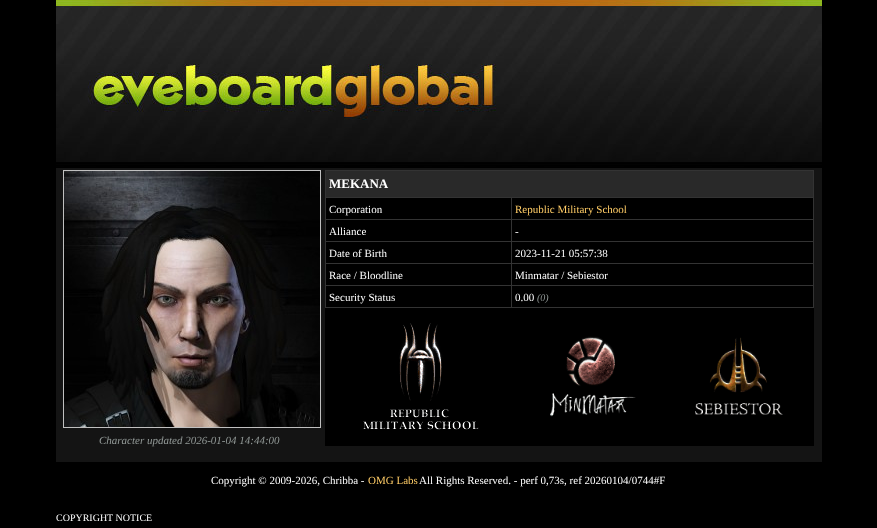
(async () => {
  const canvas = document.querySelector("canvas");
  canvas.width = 877;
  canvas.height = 528;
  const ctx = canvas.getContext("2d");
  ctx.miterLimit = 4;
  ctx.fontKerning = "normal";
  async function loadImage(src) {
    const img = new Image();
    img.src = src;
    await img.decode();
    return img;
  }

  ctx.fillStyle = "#000000";
  ctx.fillRect(0, 0, 877, 528);
  ctx.fillStyle = "#141414";
  ctx.fillRect(56, 168, 766, 2);
  ctx.drawImage(await loadImage("img/1.png"), 56, 0, 766, 168);
  for (const [x, y, w, h, color] of [
    [56, 170, 766, 280, "#141414"],
    [325, 170, 489, 138, "#333333"],
    [326, 171, 487, 26, "#292929"],
    [326, 198, 185, 21, "#000000"],
    [512, 198, 301, 21, "#000000"],
    [326, 220, 185, 21, "#000000"],
    [512, 220, 301, 21, "#000000"],
    [326, 242, 185, 21, "#000000"],
    [512, 242, 301, 21, "#000000"],
    [326, 264, 185, 21, "#000000"],
    [512, 264, 301, 21, "#000000"],
    [326, 286, 185, 21, "#000000"],
    [512, 286, 301, 21, "#000000"],
    [325, 308, 489, 138, "#000000"],
  ]) {
    ctx.fillStyle = color;
    ctx.fillRect(x, y, w, h);
  }
  ctx.drawImage(await loadImage("img/2.png"), 363, 323, 116, 107);
  ctx.drawImage(await loadImage("img/3.png"), 550, 336, 86, 81);
  ctx.drawImage(await loadImage("img/4.png"), 695, 337, 88, 78);
  ctx.strokeStyle = "#c0c0c0";
  ctx.strokeRect(63.5, 170.5, 257, 257);
  ctx.drawImage(await loadImage("img/5.png"), 64, 171, 256, 256);
  ctx.fillStyle = "#141414";
  ctx.fillRect(56, 450, 766, 12);
  ctx.font = "bold 13px Liberation Serif";
  ctx.fillStyle = "#ffffff";
  ctx.fillText("MEKANA", 329, 188);
  ctx.font = "11px Liberation Serif";
  ctx.fillText("Corporation", 329, 213);
  ctx.fillStyle = "#ffcc66";
  ctx.fillText("Republic Military School", 515, 213);
  ctx.fillStyle = "#ffffff";
  for (const [text, x, y] of [
    ["Alliance", 329, 235],
    ["-", 515, 235],
    ["Date of Birth", 329, 257],
    ["2023-11-21 05:57:38", 515, 257],
    ["Race / Bloodline", 329, 279],
    ["Minmatar / Sebiestor", 515, 279],
    ["Security Status", 329, 301],
    ["0.00", 515, 301],
  ]) {
    ctx.fillText(text, x, y);
  }
  ctx.font = "italic 10px Liberation Serif";
  ctx.fillStyle = "#939a98";
  ctx.fillText("(0)", 537, 301);
  ctx.font = "italic 11px Liberation Serif";
  ctx.fillText("Character updated 2026-01-04 14:44:00", 99, 444);
  ctx.font = "11px Liberation Serif";
  ctx.fillStyle = "#ffffff";
  ctx.fillText("Copyright © 2009-2026, Chribba -", 211, 484);
  ctx.fillStyle = "#ffcc66";
  ctx.fillText("OMG Labs", 368, 484);
  ctx.fillStyle = "#ffffff";
  ctx.fillText("All Rights Reserved. - perf 0,73s, ref 20260104/0744#F", 419, 484);
  ctx.font = "10px Liberation Serif";
  ctx.fillText("COPYRIGHT NOTICE", 56, 521);
})();
